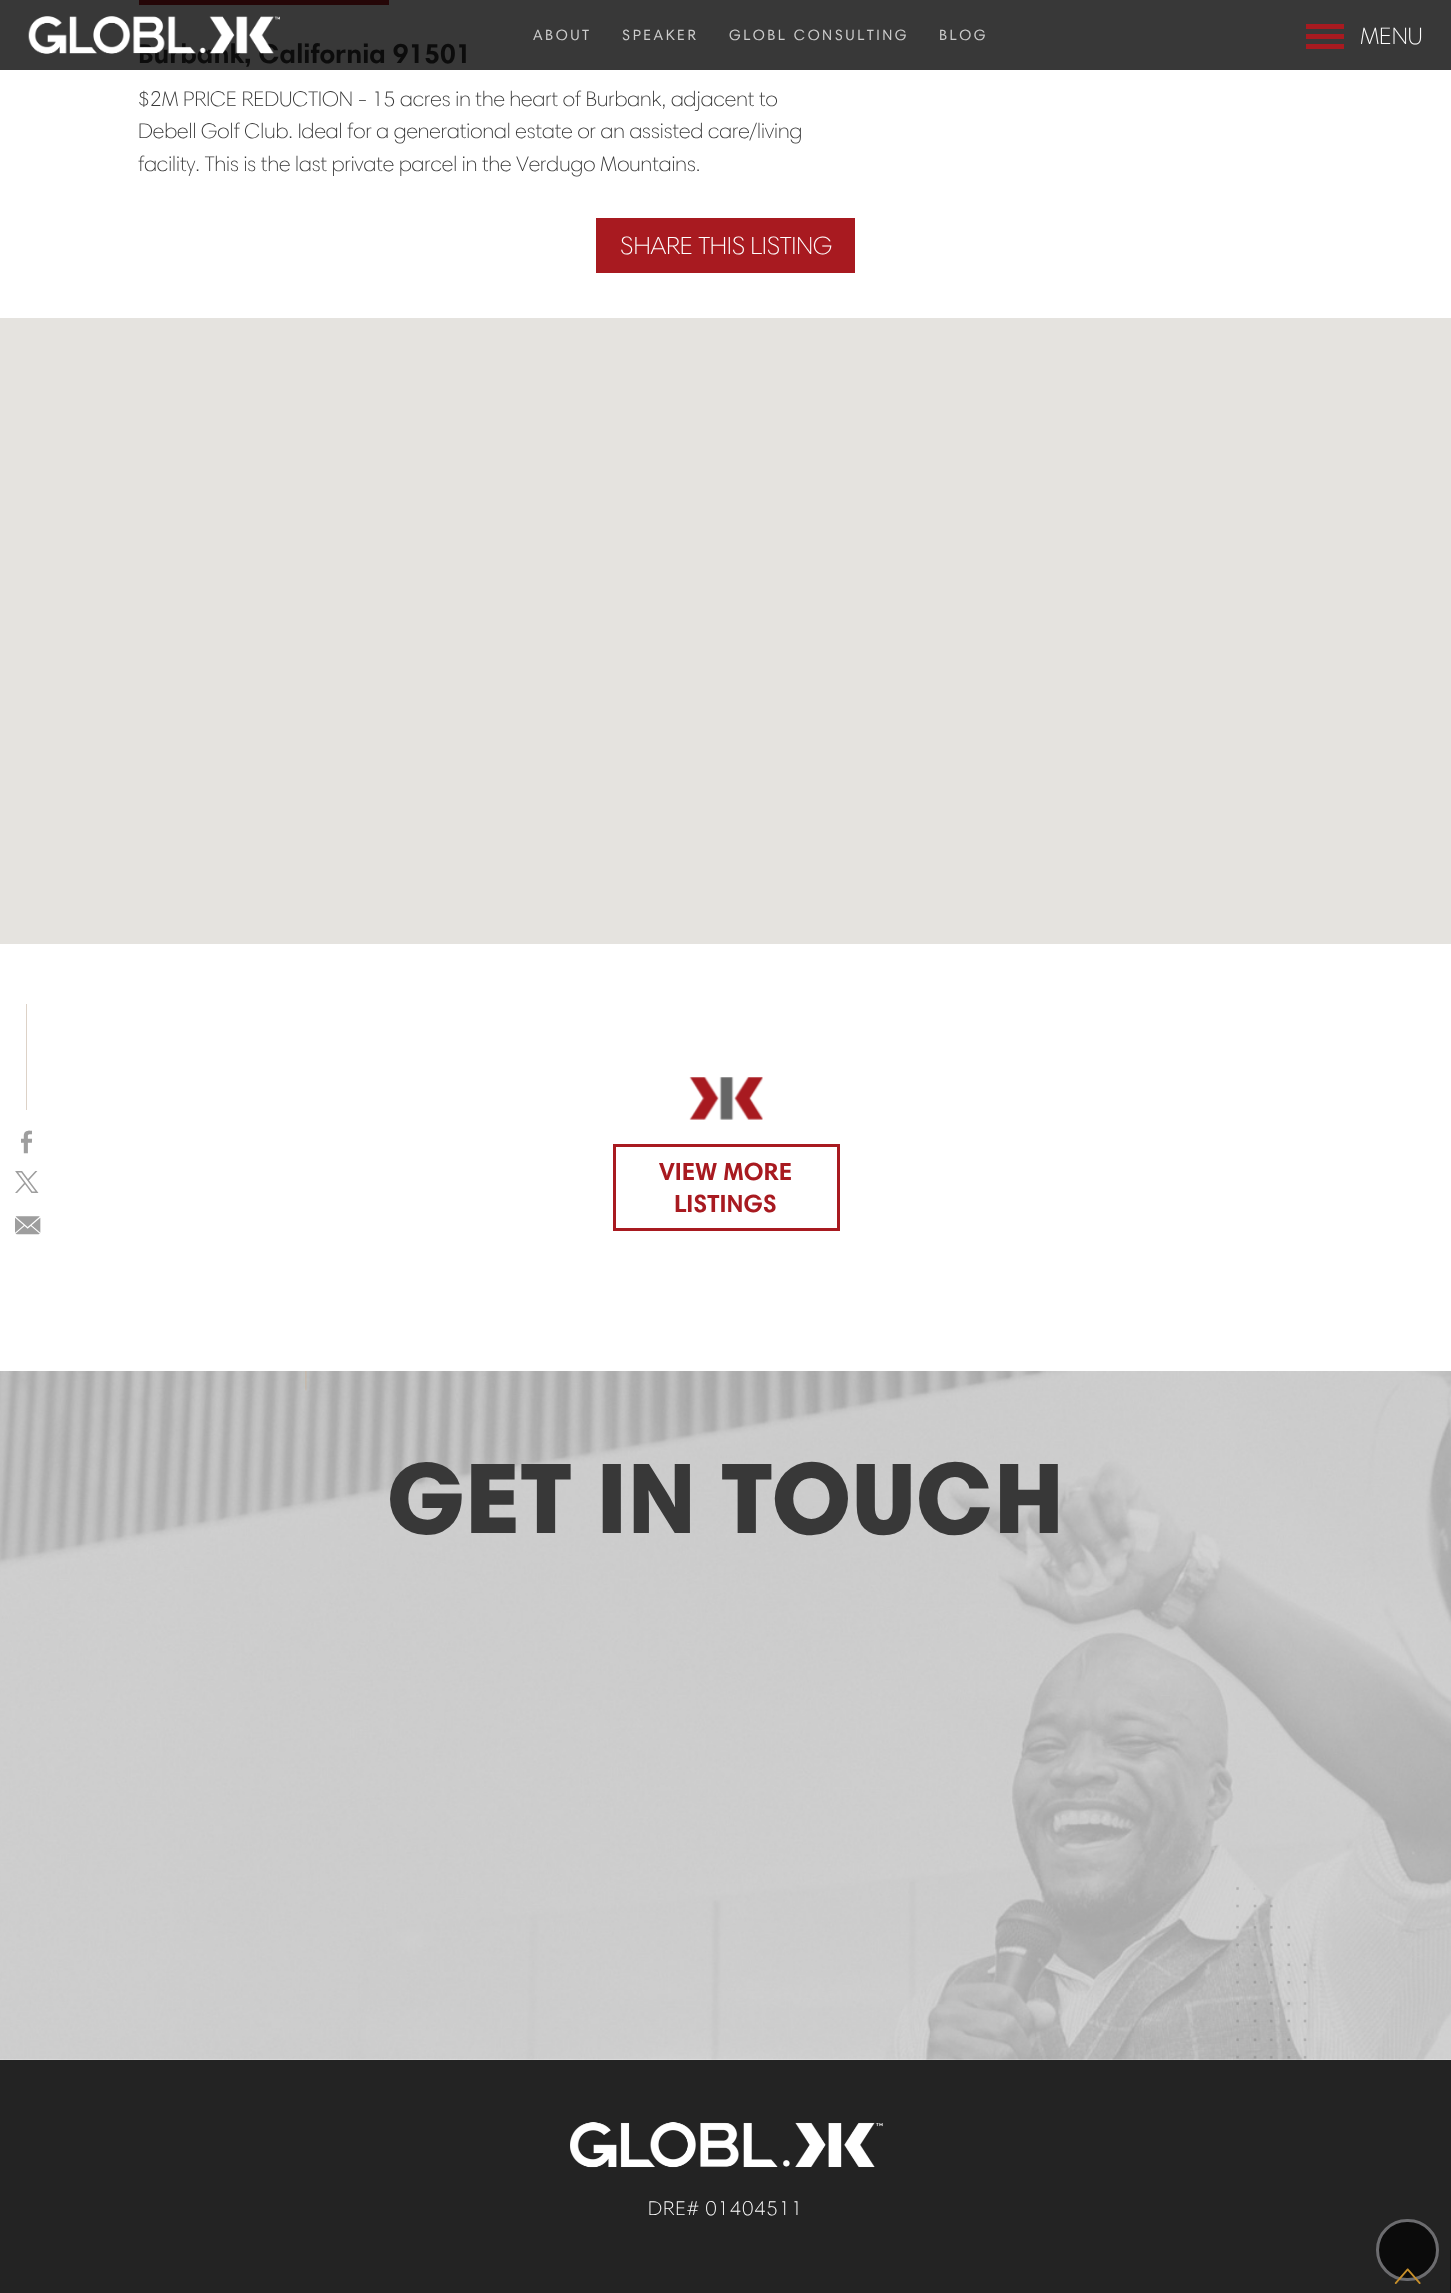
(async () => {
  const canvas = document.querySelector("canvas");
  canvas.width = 1451;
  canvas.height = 2293;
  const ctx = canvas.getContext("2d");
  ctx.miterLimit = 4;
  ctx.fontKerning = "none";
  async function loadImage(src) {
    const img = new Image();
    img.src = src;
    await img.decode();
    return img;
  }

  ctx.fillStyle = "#ffffff";
  ctx.fillRect(0, 0, 1451, 2293);
  for (const [x, y, w, h, color] of [
    [0, 0, 1451, 70, "#383838"],
    [1306, 24, 38, 5, "#a81a20"],
    [1306, 34, 38, 5, "#a81a20"],
    [1306, 44, 38, 5, "#a81a20"],
    [139, 0, 250, 5, "#250607"],
    [596, 218, 259, 55, "#a81a20"],
    [0, 318, 1451, 626, "#e5e3df"],
    [26, 1004, 1, 106, "#ddd2c7"],
  ]) {
    ctx.fillStyle = color;
    ctx.fillRect(x, y, w, h);
  }
  ctx.drawImage(await loadImage("img/2.png"), 689, 1077, 74, 43);
  ctx.strokeStyle = "#a81a20";
  ctx.lineWidth = 3;
  ctx.strokeRect(614.5, 1145.5, 224, 84);
  ctx.drawImage(await loadImage("img/3.png"), 0, 1371, 1451, 689);
  ctx.drawImage(await loadImage("img/4.png"), 1236, 1887, 71, 172);
  ctx.fillStyle = "#232323";
  ctx.fillRect(0, 2060, 1451, 233);
  ctx.fillStyle = "#151515";
  ctx.fillRect(1450, 2250, 1, 43);
  ctx.drawImage(await loadImage("img/5.png"), 570, 2122, 313, 46);
  ctx.fillStyle = "#0b0b0b";
  ctx.beginPath();
  ctx.roundRect(1377.5, 2220.5, 60, 59, 29.5);
  ctx.fill();
  ctx.strokeStyle = "#6c6c6f";
  ctx.stroke();
  ctx.letterSpacing = "2.5px";
  ctx.font = "15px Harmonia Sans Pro";
  ctx.fillStyle = "#cccccc";
  for (const [text, x, y] of [
    ["ABOUT", 533, 40],
    ["SPEAKER", 622, 40],
    ["GLOBL CONSULTING", 729, 40],
    ["BLOG", 939, 40],
  ]) {
    ctx.fillText(text, x, y);
  }
  ctx.letterSpacing = "0px";
  ctx.font = "300 24px Harmonia Sans Pro";
  ctx.fillStyle = "#ffffff";
  ctx.fillText("MENU", 1360, 44);
  ctx.font = "bold 27.5px Harmonia Sans Pro";
  ctx.fillStyle = "#0c0c0c";
  ctx.fillText("Burbank, California 91501", 138, 63);
  ctx.drawImage(await loadImage("img/1.png"), 28, 16, 252, 38);
  ctx.font = "300 21.25px Harmonia Sans Pro";
  ctx.fillStyle = "#383838";
  for (const [text, x, y] of [
    ["$2M PRICE REDUCTION - 15 acres in the heart of Burbank, adjacent to", 138, 106],
    ["Debell Golf Club. Ideal for a generational estate or an assisted care/living", 138, 138],
    ["facility. This is the last private parcel in the Verdugo", 138, 171],
    ["Mountains.", 600, 171],
  ]) {
    ctx.fillText(text, x, y);
  }
  ctx.font = "300 25px Harmonia Sans Pro";
  ctx.fillStyle = "#ffffff";
  ctx.fillText("SHARE THIS LISTING", 620, 254);
  ctx.font = "27.5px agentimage";
  ctx.fillStyle = "#9e9e9e";
  ctx.fillText("򰄔", 21, 1154);
  ctx.fillText("򰄀", 15, 1194);
  ctx.font = "18px agentimage";
  ctx.fillText("򰄢", 15, 1233);
  ctx.font = "bold 25px Harmonia Sans Pro";
  ctx.fillStyle = "#a81a20";
  ctx.fillText("VIEW MORE", 659, 1180);
  ctx.fillText("LISTINGS", 674, 1212);
  ctx.font = "900 101.25px Harmonia Sans Pro";
  ctx.fillStyle = "#383838";
  ctx.fillText("GET IN TOUCH", 387, 1533);
  ctx.letterSpacing = "1.25px";
  ctx.font = "300 20px Harmonia Sans Pro";
  ctx.fillStyle = "#ffffff";
  ctx.fillText("DRE# 01404511", 648, 2215);
  ctx.letterSpacing = "0px";
  ctx.font = "bold 25px agentimage";
  ctx.fillStyle = "#c78f2b";
  ctx.save();
  ctx.translate(1419, 2284);
  ctx.rotate(-90 * Math.PI / 180);
  ctx.fillText("򰀂", 0, 0);
  ctx.restore();
})();
